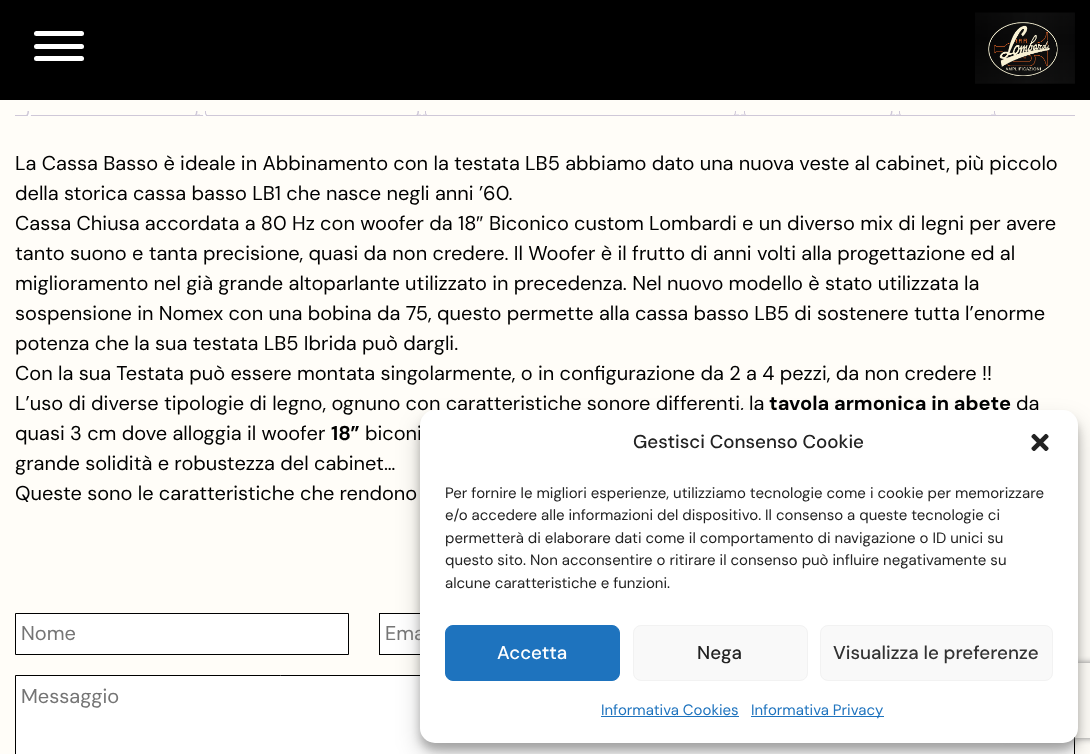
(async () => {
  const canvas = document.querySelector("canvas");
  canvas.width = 1090;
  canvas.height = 754;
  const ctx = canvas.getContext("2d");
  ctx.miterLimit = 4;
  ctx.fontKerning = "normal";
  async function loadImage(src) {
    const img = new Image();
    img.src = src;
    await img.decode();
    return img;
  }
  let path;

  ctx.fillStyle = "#fffdf8";
  ctx.fillRect(0, 0, 1090, 754);
  ctx.fillStyle = "#000000";
  ctx.fillRect(0, 0, 1090, 100);
  ctx.fillStyle = "#ffffff";
  ctx.beginPath();
  ctx.roundRect(34, 56, 50, 5, 2.5);
  ctx.fill();
  ctx.beginPath();
  ctx.roundRect(34, 31, 50, 5, 2.5);
  ctx.fill();
  ctx.beginPath();
  ctx.roundRect(34, 44, 50, 5, 2.5);
  ctx.fill();
  ctx.drawImage(await loadImage("img/1.png"), 975, 12, 100, 72);
  ctx.save();
  ctx.beginPath();
  ctx.rect(15, 56, 1060, 60);
  ctx.clip();
  ctx.fillStyle = "#e9e6ed";
  path = new Path2D("M194 117.5V120C198 120 200 118 200 114H197.5C197 115.5 195.5 117 194 117.5Z");
  ctx.fill(path);
  ctx.fillStyle = "#cfc8d8";
  path = new Path2D("M191 111H197.5C197.5 115.5 195.5 117.5 191 117.5ZM191 111H196C196 115 195 116 191 116Z");
  ctx.fill(path, "evenodd");
  ctx.fillStyle = "#e9e6ed";
  path = new Path2D("M423 114C423 118 425 120 429 120V117.5C427 117 426 115.5 425 114Z");
  ctx.fill(path);
  ctx.fillStyle = "#cfc8d8";
  path = new Path2D("M425 111H431V117.5C428 117.5 425 116 425 112.5ZM426 111H431V116C429 116 426 115.5 426 112.5Z");
  ctx.fill(path, "evenodd");
  ctx.fillStyle = "#e9e6ed";
  path = new Path2D("M415 117.5V120C419 120 421 118 421 114H418.5C418 115.5 416.5 117 415 117.5Z");
  ctx.fill(path);
  ctx.fillStyle = "#cfc8d8";
  path = new Path2D("M412.5 111H419C419 115.5 417 117.5 412.5 117.5ZM412.5 111H417.5C417.5 115 416 116 412.5 116Z");
  ctx.fill(path, "evenodd");
  ctx.fillStyle = "#e9e6ed";
  path = new Path2D("M741 114C741 119 743.5 120 748 120V117.5C746 117 744.5 116 744 114Z");
  ctx.fill(path);
  ctx.fillStyle = "#cfc8d8";
  path = new Path2D("M744 111H750V117.5C747 117.5 744 116 744 112.5ZM745 111H750V116C747.5 116 745 115.5 745 112.5Z");
  ctx.fill(path, "evenodd");
  ctx.fillStyle = "#e9e6ed";
  path = new Path2D("M733 117V120C737 120 739 118 739 114H736C735.5 115.5 734.5 116.5 733 117Z");
  ctx.fill(path);
  ctx.fillStyle = "#cfc8d8";
  path = new Path2D("M730 111H736C736 115.5 734.5 117.5 730 117.5ZM730 111H735C735 115 733.5 116 730 116Z");
  ctx.fill(path, "evenodd");
  ctx.fillStyle = "#e9e6ed";
  path = new Path2D("M896 114C896 119 898.5 120 903 120V117.5C901 117 899.5 116 899 114Z");
  ctx.fill(path);
  ctx.fillStyle = "#cfc8d8";
  path = new Path2D("M899 111H905V117.5C902 117.5 899 116 899 112.5ZM900 111H905V116C902.5 116 900 115.5 900 112.5Z");
  ctx.fill(path, "evenodd");
  ctx.fillStyle = "#e9e6ed";
  path = new Path2D("M889 117.5V120C893 120 895 118 895 114H892.5C892 115.5 890.5 117 889 117.5Z");
  ctx.fill(path);
  ctx.fillStyle = "#cfc8d8";
  path = new Path2D("M886 111H892.5C892.5 115.5 890.5 117.5 886 117.5ZM886 111H891C891 115 890 116 886 116Z");
  ctx.fill(path, "evenodd");
  ctx.fillStyle = "#e9e6ed";
  path = new Path2D("M991 114C991 119 993.5 120 998 120V117.5C996 117 994.5 116 994 114Z");
  ctx.fill(path);
  ctx.fillStyle = "#cfc8d8";
  path = new Path2D("M994 111H1000V117.5C997 117.5 994 116 994 112.5ZM995 111H1000V116C997.5 116 995 115.5 995 112.5Z");
  ctx.fill(path, "evenodd");
  ctx.restore();
  ctx.fillStyle = "#cfc8d8";
  ctx.fillRect(15, 115, 1060, 1);
  ctx.save();
  ctx.beginPath();
  ctx.rect(15, 56, 1060, 60);
  ctx.clip();
  ctx.fillStyle = "#ffffff";
  path = new Path2D("M25 117.5V120C29 120 31 118 31 114H28.5C28 115.5 26.5 117 25 117.5Z");
  ctx.fill(path);
  ctx.fillStyle = "#cfc8d8";
  path = new Path2D("M22.5 111H29C29 115.5 27 117.5 22.5 117.5ZM22.5 111H27.5C27.5 115 26 116 22.5 116Z");
  ctx.fill(path, "evenodd");
  ctx.fillStyle = "#ffffff";
  path = new Path2D("M203 114C203 118 205 120 209 120V117.5C207 117 206 115.5 205 114Z");
  ctx.fill(path);
  ctx.fillStyle = "#cfc8d8";
  path = new Path2D("M205 111H211V117.5C208 117.5 205 116 205 112.5ZM206 111H211V116C209 116 206 115.5 206 112.5Z");
  ctx.fill(path, "evenodd");
  ctx.restore();
  ctx.fillStyle = "#ffffff";
  ctx.beginPath();
  ctx.rect(15.5, 613.5, 333, 41);
  ctx.fill();
  ctx.strokeStyle = "#000000";
  ctx.stroke();
  ctx.fillRect(380, 614, 40, 40);
  ctx.strokeRect(379.5, 613.5, 331, 41);
  ctx.beginPath();
  ctx.rect(15.5, 675.5, 1059, 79);
  ctx.fill();
  ctx.stroke();
  ctx.fillStyle = "rgba(0, 0, 0, 0.23)";
  ctx.filter = "blur(4px)";
  ctx.beginPath();
  ctx.roundRect(420, 418, 658, 332, 15);
  ctx.fill();
  ctx.filter = "none";
  ctx.fillStyle = "rgba(0, 0, 0, 0.19)";
  ctx.filter = "blur(12.5px)";
  ctx.beginPath();
  ctx.roundRect(420, 423, 658, 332, 15);
  ctx.fill();
  ctx.filter = "none";
  ctx.save();
  path = new Path2D("M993 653H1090V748H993ZM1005.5 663H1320.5C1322 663 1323 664 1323 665.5V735.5C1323 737 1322 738 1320.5 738H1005.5C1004 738 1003 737 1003 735.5V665.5C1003 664 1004 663 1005.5 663Z");
  ctx.clip(path, "evenodd");
  ctx.fillStyle = "#808080";
  ctx.filter = "blur(3px)";
  ctx.beginPath();
  ctx.roundRect(1003, 663, 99, 75, 2.5);
  ctx.fill();
  ctx.filter = "none";
  ctx.restore();
  ctx.font = "20px DM Sans";
  ctx.fillStyle = "#000000";
  for (const [text, x, y] of [
    ["La Cassa Basso è ideale in Abbinamento con la testata LB5 abbiamo dato una nuova veste al cabinet, più piccolo", 15, 170],
    ["della storica cassa basso LB1 che nasce negli anni ’60.", 15, 200],
    ["Cassa Chiusa accordata a 80 Hz con woofer da 18", 15, 230],
  ]) {
    ctx.fillText(text, x, y);
  }
  ctx.font = "20px Liberation Sans";
  ctx.fillText("″", 476, 230);
  ctx.font = "20px DM Sans";
  for (const [text, x, y] of [
    ["Biconico custom Lombardi e un diverso mix di legni per avere", 489, 230],
    ["tanto suono e tanta precisione, quasi da non credere. Il Woofer è il frutto di anni volti alla progettazione ed al", 15, 260],
    ["miglioramento nel già grande altoparlante utilizzato in precedenza. Nel nuovo modello è stato utilizzata la", 15, 290],
    ["sospensione in Nomex con una bobina da 75, questo permette alla cassa basso LB5 di sostenere tutta l’enorme", 15, 320],
    ["potenza che la sua testata LB5 Ibrida può dargli.", 15, 350],
    ["Con la sua Testata può essere montata singolarmente, o in configurazione da 2 a 4 pezzi, da non credere !!", 15, 380],
    ["L’uso di diverse tipologie di legno, ognuno con caratteristiche sonore differenti, la", 15, 410],
  ]) {
    ctx.fillText(text, x, y);
  }
  ctx.font = "bold 20px DM Sans";
  ctx.fillText("tavola armonica in abete", 769, 410);
  ctx.font = "20px DM Sans";
  ctx.fillText("da", 1016, 410);
  ctx.fillText("quasi 3 cm dove alloggia il woofer", 15, 440);
  ctx.font = "bold 20px DM Sans";
  ctx.fillText("18”", 331, 440);
  ctx.font = "20px DM Sans";
  for (const [text, x, y] of [
    ["biconi", 365, 440],
    ["grande solidità e robustezza del cabinet…", 15, 470],
    ["Queste sono le caratteristiche che rendono", 15, 500],
  ]) {
    ctx.fillText(text, x, y);
  }
  ctx.fillStyle = "#757575";
  for (const [text, x, y] of [
    ["Nome", 21, 640],
    ["Ema", 385, 640],
    ["Messaggio", 21, 703],
  ]) {
    ctx.fillText(text, x, y);
  }
  ctx.fillStyle = "#ffffff";
  ctx.beginPath();
  ctx.roundRect(420, 410, 658, 333, 15);
  ctx.fill();
  ctx.font = "500 18.75px DM Sans";
  ctx.fillStyle = "#222222";
  ctx.fillText("Gestisci Consenso Cookie", 633, 448);
  ctx.drawImage(await loadImage("img/2.png"), 1031, 433, 18, 18);
  ctx.font = "15px DM Sans";
  for (const [text, x, y] of [
    ["Per fornire le migliori esperienze, utilizziamo tecnologie come i cookie per memorizzare", 445, 498],
    ["e/o accedere alle informazioni del dispositivo. Il consenso a queste tecnologie ci", 445, 520],
    ["permetterà di elaborare dati come il comportamento di navigazione o ID unici su", 445, 543],
    ["questo sito. Non acconsentire o ritirare il consenso può influire negativamente su", 445, 565],
    ["alcune caratteristiche e funzioni.", 445, 588],
  ]) {
    ctx.fillText(text, x, y);
  }
  ctx.fillStyle = "#1e73be";
  ctx.beginPath();
  ctx.roundRect(445.5, 625.5, 174, 55, 7.5);
  ctx.fill();
  ctx.strokeStyle = "#1e73be";
  ctx.stroke();
  ctx.font = "500 18.75px DM Sans";
  ctx.fillStyle = "#ffffff";
  ctx.fillText("Accetta", 497, 659);
  ctx.fillStyle = "#f9f9f9";
  ctx.beginPath();
  ctx.roundRect(633.5, 625.5, 174, 55, 7.5);
  ctx.fill();
  ctx.strokeStyle = "#f2f2f2";
  ctx.stroke();
  ctx.fillStyle = "#222222";
  ctx.fillText("Nega", 697, 659);
  ctx.fillStyle = "#f9f9f9";
  ctx.beginPath();
  ctx.roundRect(820.5, 625.5, 232, 55, 7.5);
  ctx.fill();
  ctx.stroke();
  ctx.fillStyle = "#333333";
  ctx.fillText("Visualizza le preferenze", 833, 659);
  ctx.font = "15px DM Sans";
  ctx.fillStyle = "#1e73be";
  ctx.fillText("Informativa Cookies", 601, 715);
  ctx.fillRect(601, 716, 138, 1);
  ctx.fillRect(751, 716, 133, 1);
  ctx.fillText("Informativa Privacy", 751, 715);
})();
